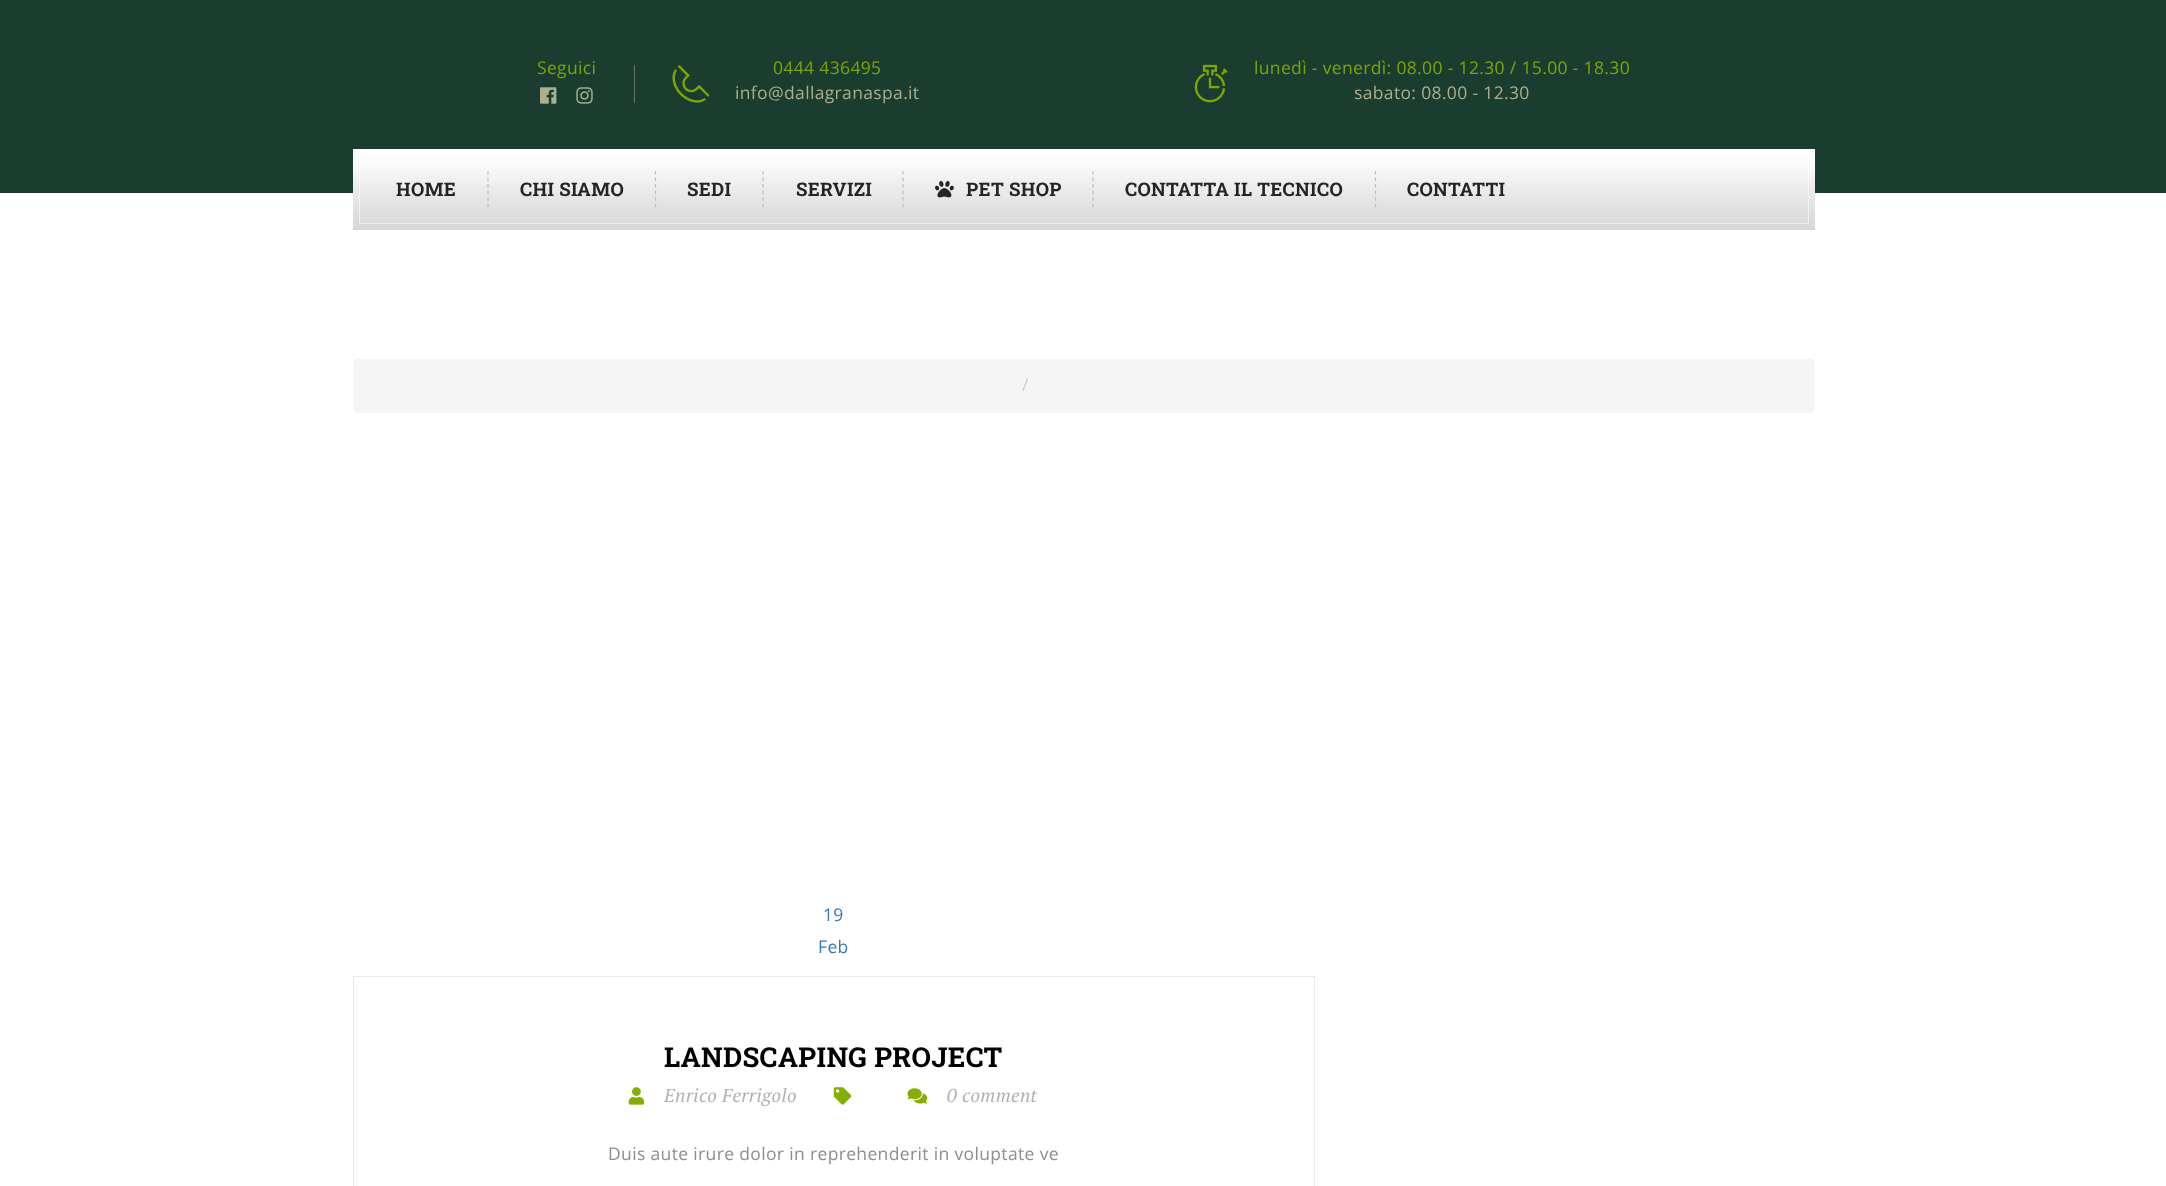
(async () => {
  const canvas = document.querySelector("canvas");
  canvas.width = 2166;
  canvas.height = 1186;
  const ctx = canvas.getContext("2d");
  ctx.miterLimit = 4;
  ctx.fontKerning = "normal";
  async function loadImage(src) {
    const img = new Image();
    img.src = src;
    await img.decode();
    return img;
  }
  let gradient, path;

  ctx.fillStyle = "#ffffff";
  ctx.fillRect(0, 0, 2166, 1186);
  ctx.fillStyle = "#1a3d2f";
  ctx.fillRect(0, 0, 2166, 193);
  ctx.drawImage(await loadImage("img/1.png"), 540, 87, 17, 17);
  ctx.drawImage(await loadImage("img/2.png"), 576, 87, 17, 17);
  ctx.fillStyle = "#6b7261";
  ctx.fillRect(634, 65, 1, 38);
  ctx.drawImage(await loadImage("img/3.png"), 672, 65, 38, 38);
  ctx.drawImage(await loadImage("img/4.png"), 1194, 64, 34, 39);
  gradient = ctx.createLinearGradient(1084, 149, 1084, 230);
  gradient.addColorStop(0, "#ffffff");
  gradient.addColorStop(0.19, "#fafafa");
  gradient.addColorStop(0.69, "#e2e2e2");
  gradient.addColorStop(1, "#d7d7d7");
  ctx.fillStyle = gradient;
  ctx.fillRect(353, 149, 1462, 81);
  ctx.strokeStyle = "rgba(255, 255, 255, 0.5)";
  ctx.strokeRect(359.5, 155.5, 1449, 68);
  path = new Path2D("M488 171V207.5");
  ctx.strokeStyle = "#bebebe";
  ctx.lineWidth = 1.2;
  ctx.setLineDash([3.75, 2.75]);
  ctx.stroke(path);
  path = new Path2D("M655.5 171V207.5");
  ctx.stroke(path);
  path = new Path2D("M763 171V207.5");
  ctx.stroke(path);
  path = new Path2D("M903 171V207.5");
  ctx.stroke(path);
  path = new Path2D("M1093 171V207.5");
  ctx.stroke(path);
  ctx.drawImage(await loadImage("img/5.png"), 935, 181, 19, 17);
  path = new Path2D("M1375.5 171V207.5");
  ctx.stroke(path);
  ctx.fillStyle = "#f5f5f5";
  ctx.beginPath();
  ctx.roundRect(353, 359, 1462, 54, 5);
  ctx.fill();
  for (const [x, y, w, h, color] of [
    [353, 976, 962, 1, "#e9e9e9"],
    [1314, 976, 1, 210, "#e9e9e9"],
    [353, 976, 1, 210, "#e9e9e9"],
  ]) {
    ctx.fillStyle = color;
    ctx.fillRect(x, y, w, h);
  }
  ctx.drawImage(await loadImage("img/6.png"), 628, 1087, 17, 18);
  ctx.drawImage(await loadImage("img/7.png"), 833, 1087, 19, 18);
  ctx.drawImage(await loadImage("img/8.png"), 907, 1088, 21, 16);
  ctx.letterSpacing = "0.35px";
  ctx.font = "17.5px Open Sans";
  ctx.fillStyle = "#7fa409";
  ctx.fillText("Seguici", 537, 74);
  ctx.fillText("0444 436495", 773, 74);
  ctx.fillStyle = "#a9af8f";
  ctx.fillText("info@dallagranaspa.it", 735, 99);
  ctx.fillStyle = "#7fa409";
  ctx.fillText("lunedì - venerdì: 08.00 - 12.30 / 15.00 - 18.30", 1254, 74);
  ctx.fillStyle = "#a9af8f";
  ctx.fillText("sabato: 08.00 - 12.30", 1354, 99);
  ctx.font = "bold 18.75px Roboto Slab";
  ctx.fillStyle = "#242424";
  for (const [text, x, y] of [
    ["HOME", 396, 196],
    ["CHI SIAMO", 520, 196],
    ["SEDI", 687, 196],
    ["SERVIZI", 796, 196],
    ["PET SHOP", 966, 196],
    ["CONTATTA IL TECNICO", 1125, 196],
    ["CONTATTI", 1407, 196],
  ]) {
    ctx.fillText(text, x, y);
  }
  ctx.font = "17.5px Open Sans";
  ctx.fillStyle = "#cccccc";
  ctx.fillText("/", 1022, 391);
  ctx.fillStyle = "#337ab7";
  ctx.fillText("19", 823, 921);
  ctx.fillText("Feb", 818, 953);
  ctx.font = "bold 27.5px Roboto Slab";
  ctx.fillStyle = "#000000";
  ctx.fillText("LANDSCAPING PROJECT", 664, 1067);
  ctx.font = "italic 18.75px PT Serif";
  ctx.fillStyle = "#b0b0b0";
  ctx.fillText("Enrico Ferrigolo", 664, 1102);
  ctx.fillText("0 comment", 947, 1102);
  ctx.font = "17.5px Open Sans";
  ctx.fillStyle = "#8e8d8d";
  ctx.fillText("Duis aute irure dolor in reprehenderit in voluptate ve", 608, 1160);
})();
